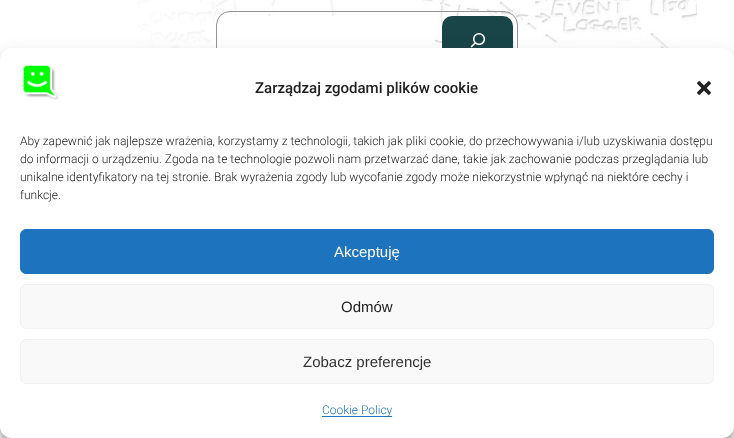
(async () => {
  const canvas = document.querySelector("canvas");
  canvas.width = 734;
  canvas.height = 438;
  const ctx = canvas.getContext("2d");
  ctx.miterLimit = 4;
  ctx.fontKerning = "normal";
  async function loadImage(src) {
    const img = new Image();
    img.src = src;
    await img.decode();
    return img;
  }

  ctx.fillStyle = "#ffffff";
  ctx.fillRect(0, 0, 734, 438);
  ctx.drawImage(await loadImage("img/1.png"), 137, 0, 560, 48);
  ctx.beginPath();
  ctx.roundRect(216.5, 11.5, 301, 58, 13.5);
  ctx.strokeStyle = "#949494";
  ctx.stroke();
  ctx.beginPath();
  ctx.roundRect(221, 16, 211, 49, 10);
  ctx.fill();
  ctx.fillStyle = "#1a4548";
  ctx.beginPath();
  ctx.roundRect(442, 16, 71, 49, 10);
  ctx.fill();
  ctx.drawImage(await loadImage("img/2.png"), 470, 33, 16, 15);
  ctx.fillStyle = "rgba(0, 0, 0, 0.23)";
  ctx.filter = "blur(3px)";
  ctx.beginPath();
  ctx.roundRect(0, 54, 734, 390, 12);
  ctx.fill();
  ctx.filter = "none";
  ctx.fillStyle = "rgba(0, 0, 0, 0.19)";
  ctx.filter = "blur(10px)";
  ctx.beginPath();
  ctx.roundRect(0, 58, 734, 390, 12);
  ctx.fill();
  ctx.filter = "none";
  ctx.fillStyle = "#ffffff";
  ctx.beginPath();
  ctx.roundRect(0, 48, 734, 390, 12);
  ctx.fill();
  ctx.drawImage(await loadImage("img/3.png"), 23, 65, 36, 35);
  ctx.drawImage(await loadImage("img/4.png"), 697, 81, 14, 14);
  ctx.fillStyle = "#1e73be";
  ctx.beginPath();
  ctx.roundRect(20.5, 229.5, 693, 44, 5.5);
  ctx.fill();
  ctx.strokeStyle = "#1e73be";
  ctx.stroke();
  ctx.fillStyle = "#f9f9f9";
  ctx.beginPath();
  ctx.roundRect(20.5, 284.5, 693, 44, 5.5);
  ctx.fill();
  ctx.strokeStyle = "#f2f2f2";
  ctx.stroke();
  ctx.beginPath();
  ctx.roundRect(20.5, 339.5, 693, 44, 5.5);
  ctx.fill();
  ctx.stroke();
  ctx.fillStyle = "#1e73be";
  ctx.fillRect(322, 416, 70, 1);
  ctx.font = "500 15px Roboto";
  ctx.fillStyle = "#222222";
  ctx.fillText("Zarządzaj zgodami plików cookie", 255, 93);
  ctx.font = "300 12px Roboto";
  for (const [text, x, y] of [
    ["Aby zapewnić jak najlepsze wrażenia, korzystamy z technologii, takich jak pliki cookie, do przechowywania i/lub uzyskiwania dostępu", 20, 145],
    ["do informacji o urządzeniu. Zgoda na te technologie pozwoli nam przetwarzać dane, takie jak zachowanie podczas przeglądania lub", 20, 163],
    ["unikalne identyfikatory na tej stronie. Brak wyrażenia zgody lub wycofanie zgody może niekorzystnie wpłynąć na niektóre cechy i", 20, 181],
    ["funkcje.", 20, 199],
  ]) {
    ctx.fillText(text, x, y);
  }
  ctx.font = "15px Liberation Sans";
  ctx.fillStyle = "#ffffff";
  ctx.fillText("Akceptuję", 334, 257);
  ctx.fillStyle = "#222222";
  ctx.fillText("Odmów", 341, 312);
  ctx.fillStyle = "#333333";
  ctx.fillText("Zobacz preferencje", 303, 367);
  ctx.font = "300 12px Roboto";
  ctx.fillStyle = "#1e73be";
  ctx.fillText("Cookie Policy", 322, 414);
})();
